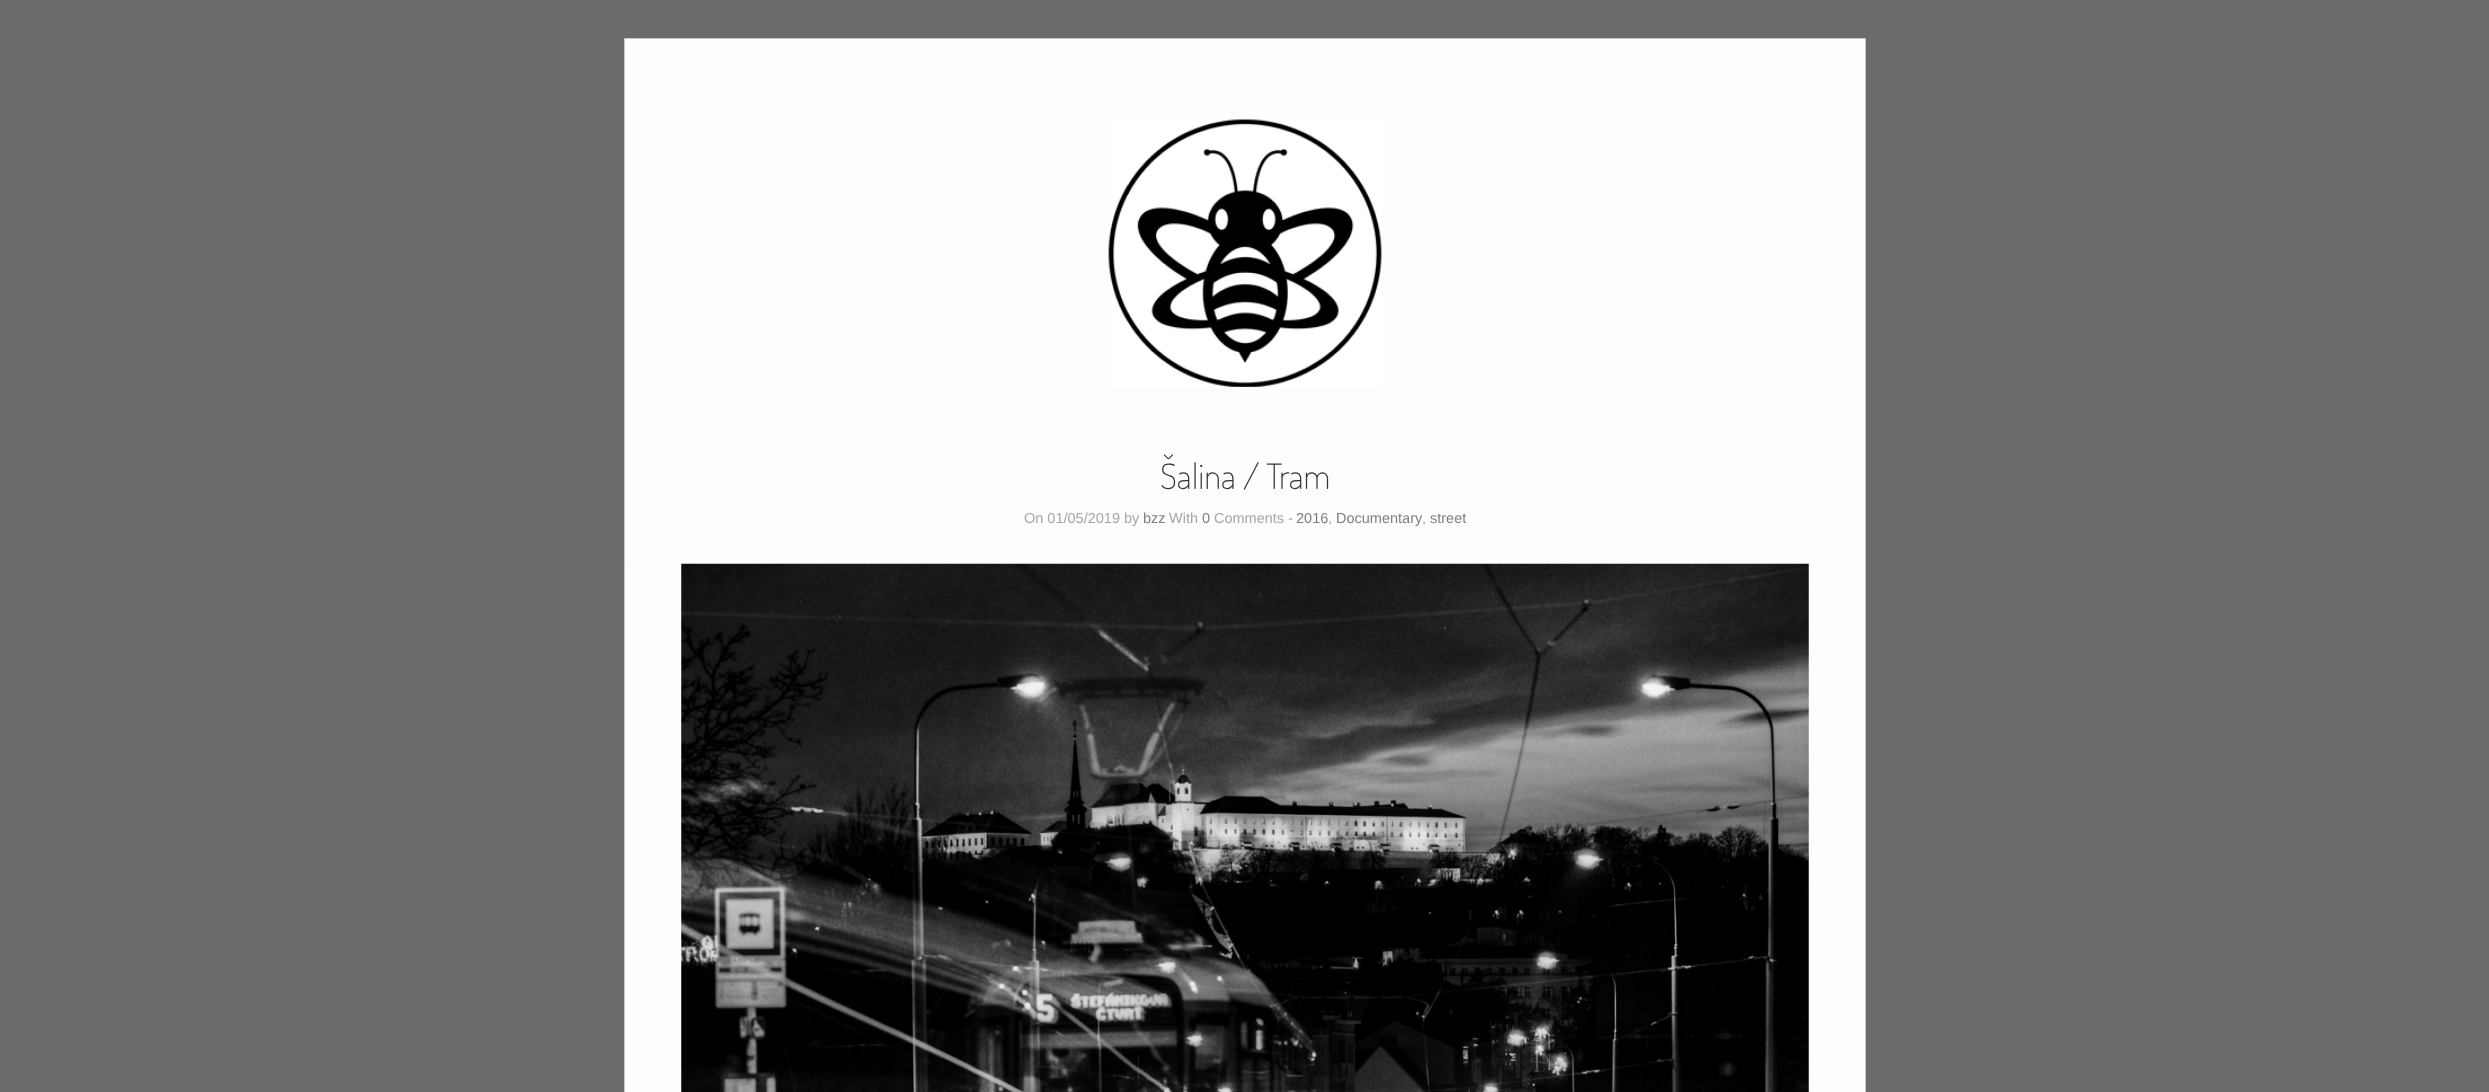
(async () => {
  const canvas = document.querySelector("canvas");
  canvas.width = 2489;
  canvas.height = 1092;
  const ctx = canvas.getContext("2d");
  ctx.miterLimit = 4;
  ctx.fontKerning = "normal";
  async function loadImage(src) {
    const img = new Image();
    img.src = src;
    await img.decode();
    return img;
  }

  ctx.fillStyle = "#6b6b6b";
  ctx.fillRect(0, 0, 2489, 1092);
  ctx.fillStyle = "rgba(0, 0, 0, 0.1)";
  ctx.filter = "blur(1px)";
  ctx.beginPath();
  ctx.rect(624, 39, 1242, 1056);
  ctx.fill();
  ctx.filter = "none";
  ctx.fillStyle = "#fdfdfd";
  ctx.beginPath();
  ctx.rect(624.5, 38.5, 1241, 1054);
  ctx.fill();
  ctx.strokeStyle = "#cbc9c7";
  ctx.stroke();
  ctx.drawImage(await loadImage("img/1.png"), 1108, 119, 274, 268);
  ctx.drawImage(await loadImage("img/2.png"), 681, 563, 1128, 529);
  ctx.font = "200 35px Dosis";
  ctx.fillStyle = "#333333";
  ctx.fillText("Šalina / Tram", 1160, 489);
  ctx.font = "14.5px Liberation Sans";
  ctx.fillStyle = "#a6a6a6";
  ctx.fillText("On 01/05/2019 by", 1024, 523);
  ctx.fillStyle = "#808080";
  ctx.fillText("bzz", 1143, 523);
  ctx.fillStyle = "#a6a6a6";
  ctx.fillText("With", 1169, 523);
  ctx.fillStyle = "#808080";
  ctx.fillText("0", 1202, 523);
  ctx.fillStyle = "#a6a6a6";
  ctx.fillText("Comments -", 1214, 523);
  ctx.fillStyle = "#808080";
  ctx.fillText("2016", 1296, 523);
  ctx.fillStyle = "#a6a6a6";
  ctx.fillText(",", 1328, 523);
  ctx.fillStyle = "#808080";
  ctx.fillText("Documentary", 1336, 523);
  ctx.fillStyle = "#a6a6a6";
  ctx.fillText(",", 1422, 523);
  ctx.fillStyle = "#808080";
  ctx.fillText("street", 1430, 523);
})();
